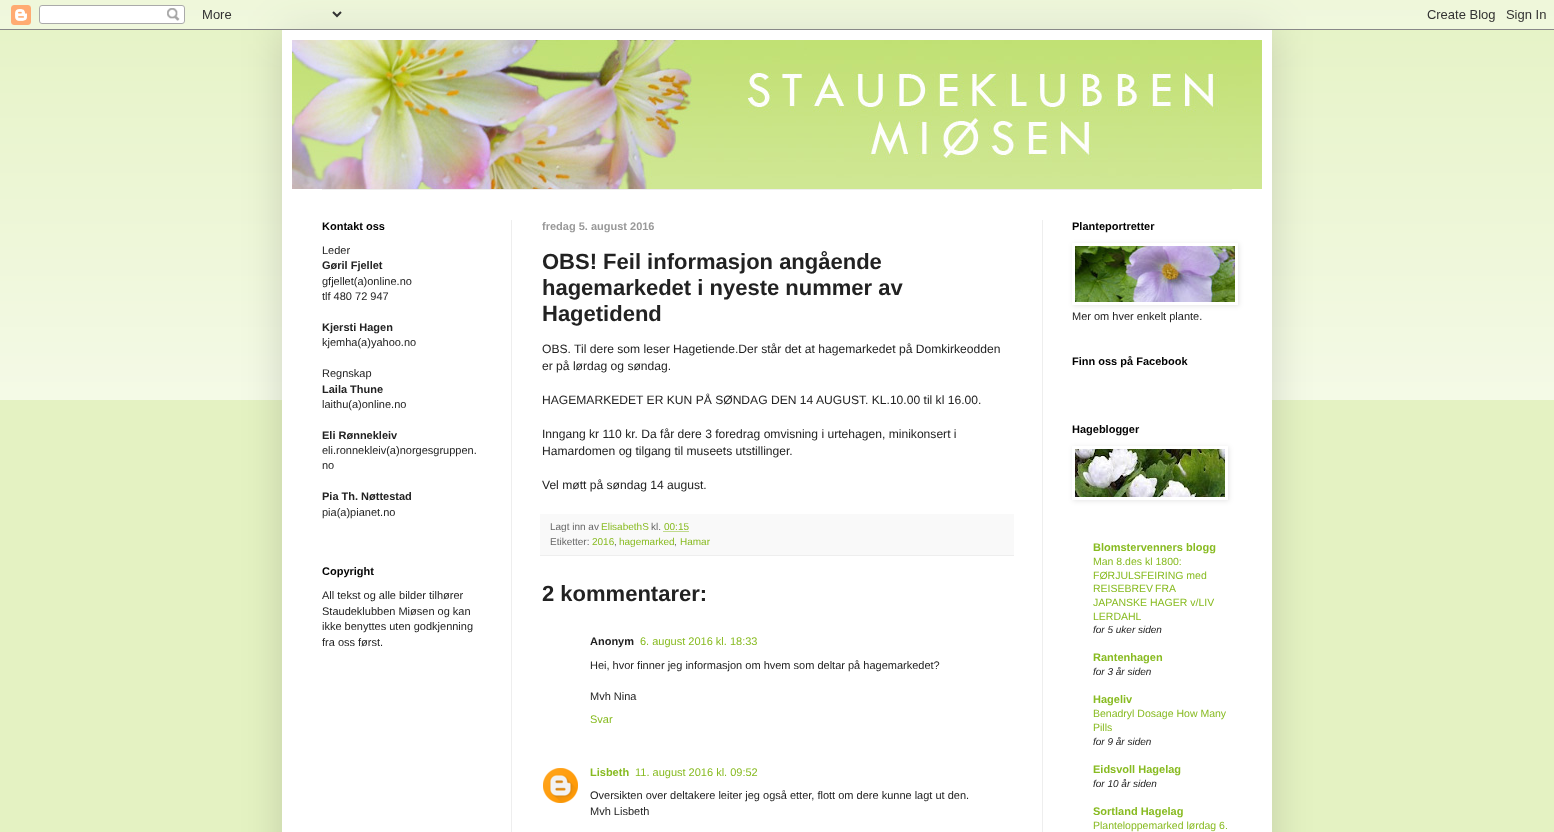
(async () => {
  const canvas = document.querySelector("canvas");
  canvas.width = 1554;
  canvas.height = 832;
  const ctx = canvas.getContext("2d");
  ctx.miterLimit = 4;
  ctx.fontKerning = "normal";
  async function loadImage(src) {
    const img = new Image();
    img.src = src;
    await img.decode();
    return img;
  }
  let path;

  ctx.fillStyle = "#e4f2c2";
  ctx.fillRect(0, 0, 1554, 832);
  ctx.drawImage(await loadImage("img/2.png"), 0, 10, 1554, 390);
  ctx.fillStyle = "rgba(0, 0, 0, 0.15)";
  ctx.filter = "blur(20px)";
  ctx.beginPath();
  ctx.rect(282, 30, 990, 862);
  ctx.fill();
  ctx.filter = "none";
  ctx.drawImage(await loadImage("img/1.png"), 0, 0, 1554, 30);
  ctx.fillStyle = "#ffffff";
  ctx.fillRect(282, 30, 990, 802);
  ctx.drawImage(await loadImage("img/3.png"), 292, 40, 970, 149);
  for (const [x, y, w, h, color] of [
    [322, 189, 910, 1, "#eeeeee"],
    [511, 220, 1, 612, "#eeeeee"],
    [1042, 220, 1, 612, "#eeeeee"],
    [540, 514, 474, 41, "#f9f9f9"],
    [540, 555, 474, 1, "#eeeeee"],
  ]) {
    ctx.fillStyle = color;
    ctx.fillRect(x, y, w, h);
  }
  path = new Path2D("M663.5 531.5H688.5");
  ctx.strokeStyle = "#88bb21";
  ctx.setLineDash([1, 1]);
  ctx.stroke(path);
  ctx.drawImage(await loadImage("img/4.png"), 543, 768, 35, 35);
  ctx.save();
  path = new Path2D("M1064 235H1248V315H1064ZM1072 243H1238V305H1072Z");
  ctx.clip(path, "evenodd");
  ctx.fillStyle = "rgba(0, 0, 0, 0.1)";
  ctx.filter = "blur(2.5px)";
  ctx.beginPath();
  ctx.rect(1073, 244, 166, 62);
  ctx.fill();
  ctx.filter = "none";
  ctx.restore();
  ctx.drawImage(await loadImage("img/5.png"), 1075, 246, 160, 56);
  ctx.save();
  path = new Path2D("M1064 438H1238V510H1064ZM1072 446H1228V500H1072Z");
  ctx.clip(path, "evenodd");
  ctx.fillStyle = "rgba(0, 0, 0, 0.1)";
  ctx.filter = "blur(2.5px)";
  ctx.beginPath();
  ctx.rect(1073, 447, 156, 54);
  ctx.fill();
  ctx.filter = "none";
  ctx.restore();
  ctx.drawImage(await loadImage("img/6.png"), 1075, 449, 150, 48);
  ctx.font = "bold 11px Liberation Sans";
  ctx.fillStyle = "#000000";
  ctx.fillText("Kontakt oss", 322, 230);
  ctx.font = "11px Liberation Sans";
  ctx.fillStyle = "#222222";
  ctx.fillText("Leder", 322, 254);
  ctx.font = "bold 11px Liberation Sans";
  ctx.fillText("Gøril Fjellet", 322, 269);
  ctx.font = "11px Liberation Sans";
  ctx.fillText("gfjellet(a)online.no", 322, 285);
  ctx.fillText("tlf 480 72 947", 322, 300);
  ctx.font = "bold 11px Liberation Sans";
  ctx.fillText("Kjersti Hagen", 322, 331);
  ctx.font = "11px Liberation Sans";
  ctx.fillText("kjemha(a)yahoo.no", 322, 346);
  ctx.fillText("Regnskap", 322, 377);
  ctx.font = "bold 11px Liberation Sans";
  ctx.fillText("Laila Thune", 322, 393);
  ctx.font = "11px Liberation Sans";
  ctx.fillText("laithu(a)online.no", 322, 408);
  ctx.font = "bold 11px Liberation Sans";
  ctx.fillText("Eli Rønnekleiv", 322, 439);
  ctx.font = "11px Liberation Sans";
  ctx.fillText("eli.ronnekleiv(a)norgesgruppen.", 322, 454);
  ctx.fillText("no", 322, 469);
  ctx.font = "bold 11px Liberation Sans";
  ctx.fillText("Pia Th. Nøttestad", 322, 500);
  ctx.font = "11px Liberation Sans";
  ctx.fillText("pia(a)pianet.no", 322, 516);
  ctx.font = "bold 11px Liberation Sans";
  ctx.fillStyle = "#000000";
  ctx.fillText("Copyright", 322, 575);
  ctx.font = "11px Liberation Sans";
  ctx.fillStyle = "#222222";
  for (const [text, x, y] of [
    ["All tekst og alle bilder tilhører", 322, 599],
    ["Staudeklubben Miøsen og kan", 322, 615],
    ["ikke benyttes uten godkjenning", 322, 630],
    ["fra oss først.", 322, 646],
  ]) {
    ctx.fillText(text, x, y);
  }
  ctx.font = "bold 11px Liberation Sans";
  ctx.fillStyle = "#999999";
  ctx.fillText("fredag 5. august 2016", 542, 230);
  ctx.font = "bold 22px Liberation Sans";
  ctx.fillStyle = "#222222";
  for (const [text, x, y] of [
    ["OBS! Feil informasjon angående", 542, 269],
    ["hagemarkedet i nyeste nummer av", 542, 295],
    ["Hagetidend", 542, 321],
  ]) {
    ctx.fillText(text, x, y);
  }
  ctx.font = "12.1px Liberation Sans";
  for (const [text, x, y] of [
    ["OBS. Til dere som leser Hagetiende.Der står det at hagemarkedet på Domkirkeodden", 542, 353],
    ["er på lørdag og søndag.", 542, 370],
    ["HAGEMARKEDET ER KUN PÅ SØNDAG DEN 14 AUGUST. KL.10.00 til kl 16.00.", 542, 404],
    ["Inngang kr 110 kr. Da får dere 3 foredrag omvisning i urtehagen, minikonsert i", 542, 438],
    ["Hamardomen og tilgang til museets utstillinger.", 542, 455],
    ["Vel møtt på søndag 14 august.", 542, 489],
  ]) {
    ctx.fillText(text, x, y);
  }
  ctx.font = "10px Liberation Sans";
  ctx.fillStyle = "#666666";
  ctx.fillText("Lagt inn av", 550, 530);
  ctx.fillStyle = "#88bb21";
  ctx.fillText("ElisabethS", 601, 530);
  ctx.fillStyle = "#666666";
  ctx.fillText("kl.", 651, 530);
  ctx.fillStyle = "#88bb21";
  ctx.fillText("00:15", 664, 530);
  ctx.fillStyle = "#666666";
  ctx.fillText("Etiketter:", 550, 545);
  ctx.fillStyle = "#88bb21";
  ctx.fillText("2016", 592, 545);
  ctx.fillStyle = "#666666";
  ctx.fillText(",", 614, 545);
  ctx.fillStyle = "#88bb21";
  ctx.fillText("hagemarked", 619, 545);
  ctx.fillStyle = "#666666";
  ctx.fillText(",", 674, 545);
  ctx.fillStyle = "#88bb21";
  ctx.fillText("Hamar", 680, 545);
  ctx.font = "bold 22px Liberation Sans";
  ctx.fillStyle = "#222222";
  ctx.fillText("2 kommentarer:", 542, 601);
  ctx.font = "bold 11px Liberation Sans";
  ctx.fillText("Anonym", 590, 645);
  ctx.font = "11px Liberation Sans";
  ctx.fillStyle = "#88bb21";
  ctx.fillText("6. august 2016 kl. 18:33", 640, 645);
  ctx.fillStyle = "#222222";
  ctx.fillText("Hei, hvor finner jeg informasjon om hvem som deltar på hagemarkedet?", 590, 669);
  ctx.fillText("Mvh Nina", 590, 700);
  ctx.fillStyle = "#88bb21";
  ctx.fillText("Svar", 590, 723);
  ctx.font = "bold 11px Liberation Sans";
  ctx.fillText("Lisbeth", 590, 776);
  ctx.font = "11px Liberation Sans";
  ctx.fillText("11. august 2016 kl. 09:52", 635, 776);
  ctx.fillStyle = "#222222";
  ctx.fillText("Oversikten over deltakere leiter jeg også etter, flott om dere kunne lagt ut den.", 590, 799);
  ctx.fillText("Mvh Lisbeth", 590, 815);
  ctx.font = "bold 11px Liberation Sans";
  ctx.fillStyle = "#000000";
  ctx.fillText("Planteportretter", 1072, 230);
  ctx.font = "11px Liberation Sans";
  ctx.fillStyle = "#222222";
  ctx.fillText("Mer om hver enkelt plante.", 1072, 320);
  ctx.font = "bold 11px Liberation Sans";
  ctx.fillStyle = "#000000";
  ctx.fillText("Finn oss på Facebook", 1072, 365);
  ctx.fillText("Hageblogger", 1072, 433);
  ctx.fillStyle = "#88bb21";
  ctx.fillText("Blomstervenners blogg", 1093, 551);
  ctx.font = "10.5px Liberation Sans";
  ctx.fillText("Man 8.des kl 1800:", 1093, 565);
  ctx.fillText("FØRJULSFEIRING med", 1093, 579);
  ctx.wordSpacing = "-1px";
  ctx.fillText("REISEBREV FRA", 1093, 592);
  ctx.wordSpacing = "0px";
  ctx.fillText("JAPANSKE HAGER v/LIV", 1093, 606);
  ctx.fillText("LERDAHL", 1093, 620);
  ctx.font = "italic 10px Liberation Sans";
  ctx.fillStyle = "#222222";
  ctx.fillText("for 5 uker siden", 1093, 633);
  ctx.font = "bold 11px Liberation Sans";
  ctx.fillStyle = "#88bb21";
  ctx.fillText("Rantenhagen", 1093, 661);
  ctx.font = "italic 10px Liberation Sans";
  ctx.fillStyle = "#222222";
  ctx.fillText("for 3 år siden", 1093, 675);
  ctx.font = "bold 11px Liberation Sans";
  ctx.fillStyle = "#88bb21";
  ctx.fillText("Hageliv", 1093, 703);
  ctx.font = "10.5px Liberation Sans";
  ctx.fillText("Benadryl Dosage How Many", 1093, 717);
  ctx.fillText("Pills", 1093, 731);
  ctx.font = "italic 10px Liberation Sans";
  ctx.fillStyle = "#222222";
  ctx.fillText("for 9 år siden", 1093, 745);
  ctx.font = "bold 11px Liberation Sans";
  ctx.fillStyle = "#88bb21";
  ctx.fillText("Eidsvoll Hagelag", 1093, 773);
  ctx.font = "italic 10px Liberation Sans";
  ctx.fillStyle = "#222222";
  ctx.fillText("for 10 år siden", 1093, 787);
  ctx.font = "bold 11px Liberation Sans";
  ctx.fillStyle = "#88bb21";
  ctx.fillText("Sortland Hagelag", 1093, 815);
  ctx.font = "10.5px Liberation Sans";
  ctx.fillText("Planteloppemarked lørdag 6.", 1093, 829);
})();
